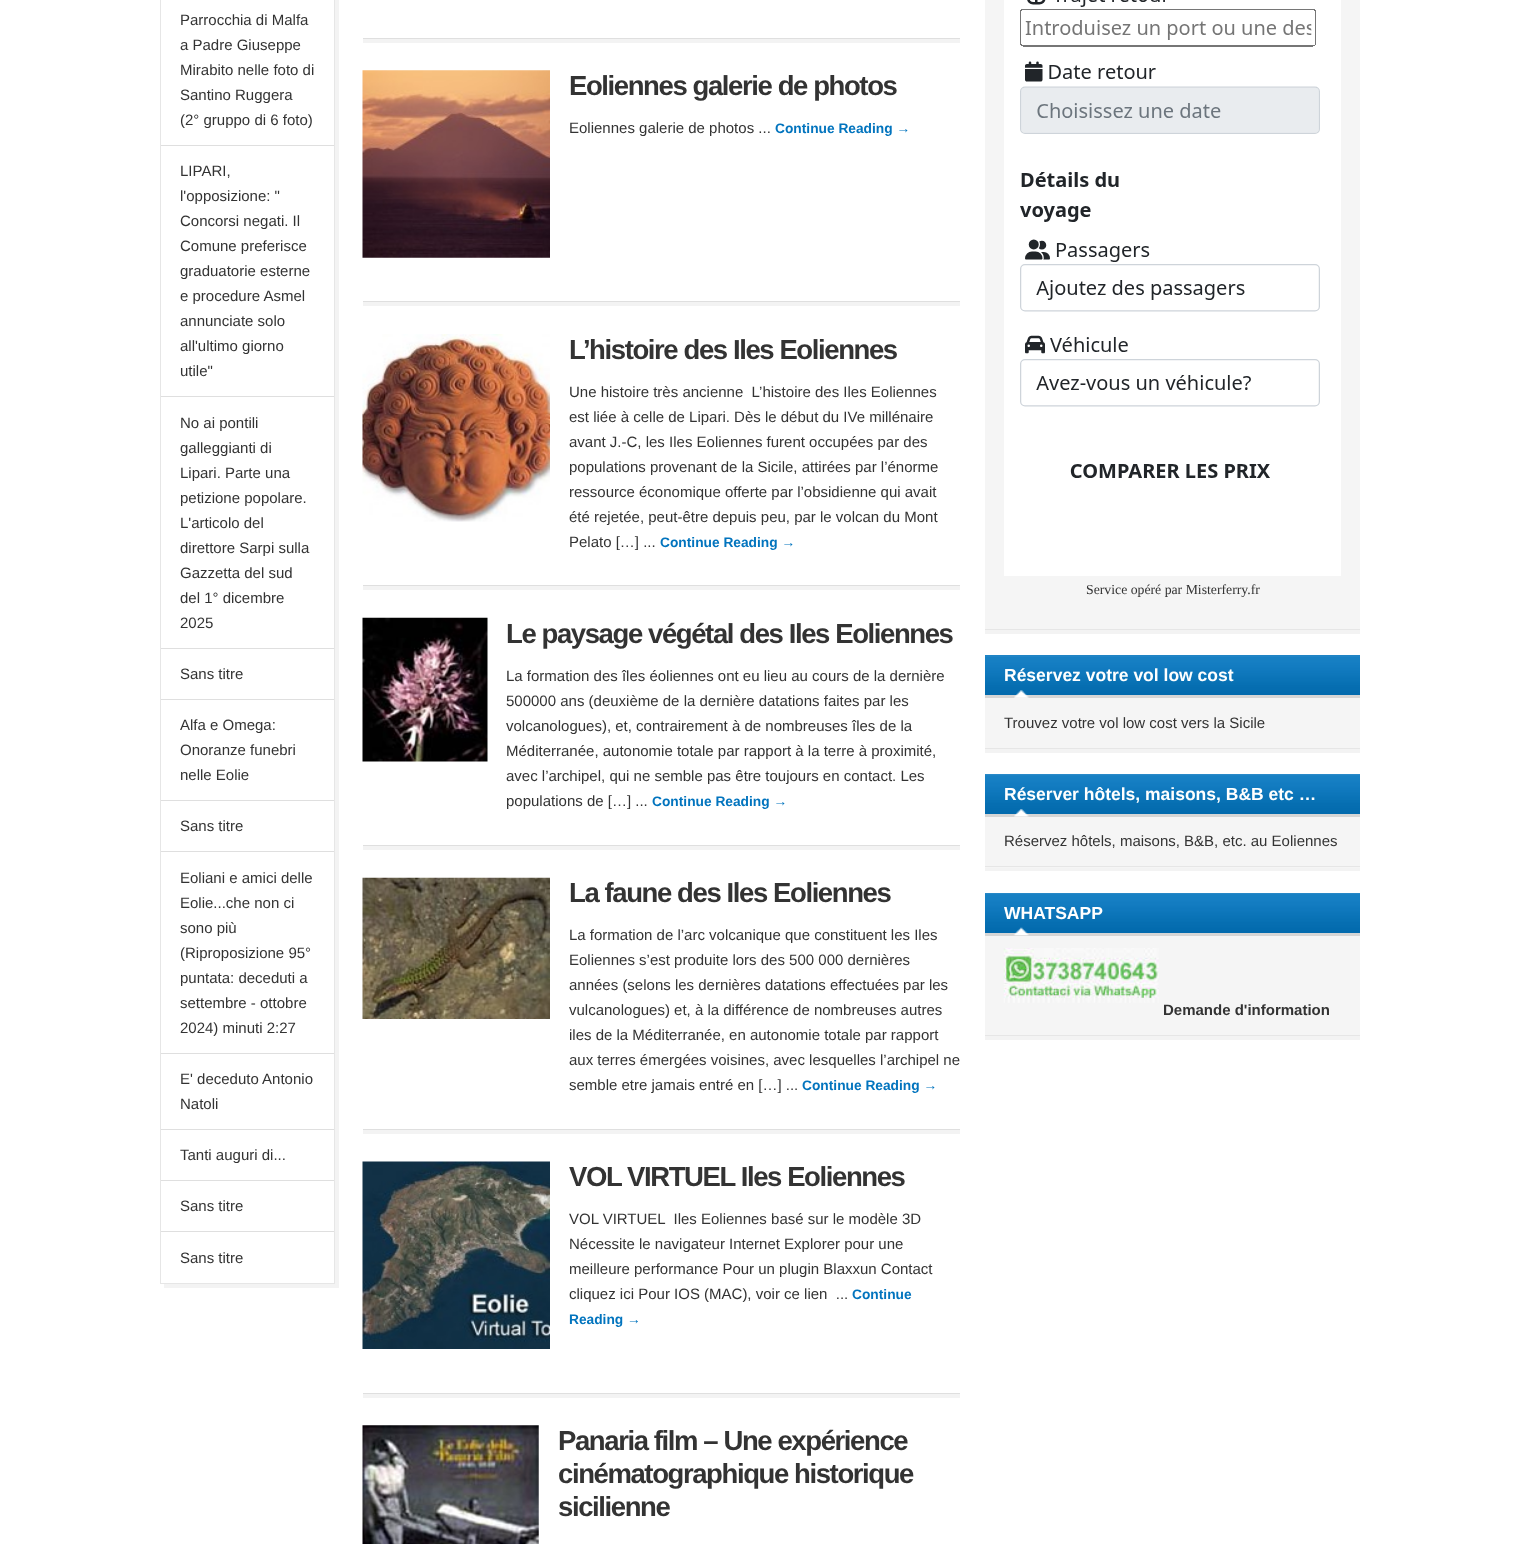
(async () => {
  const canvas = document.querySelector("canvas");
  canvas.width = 1520;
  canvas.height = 1544;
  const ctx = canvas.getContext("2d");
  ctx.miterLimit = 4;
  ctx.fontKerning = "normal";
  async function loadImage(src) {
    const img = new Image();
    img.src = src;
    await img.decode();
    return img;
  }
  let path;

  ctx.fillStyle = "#ffffff";
  ctx.fillRect(0, 0, 1520, 1544);
  ctx.fillStyle = "#f3f3f3";
  path = new Path2D("M164 1284V1288H339V-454H335V1284Z");
  ctx.fill(path);
  ctx.strokeStyle = "#e6e6e6";
  ctx.strokeRect(160.5, -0.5, 174, 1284);
  for (const [x, y, w, h, color] of [
    [161, 145, 173, 1, "#dfdfdf"],
    [161, 396, 173, 1, "#dfdfdf"],
    [161, 648, 173, 1, "#dfdfdf"],
    [161, 699, 173, 1, "#dfdfdf"],
    [161, 800, 173, 1, "#dfdfdf"],
    [161, 851, 173, 1, "#dfdfdf"],
    [161, 1053, 173, 1, "#dfdfdf"],
    [161, 1129, 173, 1, "#dfdfdf"],
    [161, 1180, 173, 1, "#dfdfdf"],
    [161, 1231, 173, 1, "#dfdfdf"],
    [363, 39, 597, 4, "#f3f3f3"],
    [363, 38, 597, 1, "#dfdfdf"],
    [363, 302, 597, 4, "#f3f3f3"],
    [363, 301, 597, 1, "#dfdfdf"],
  ]) {
    ctx.fillStyle = color;
    ctx.fillRect(x, y, w, h);
  }
  ctx.drawImage(await loadImage("img/1.png"), 362, 70, 188, 188);
  ctx.fillStyle = "#f3f3f3";
  ctx.fillRect(363, 586, 597, 4);
  ctx.fillStyle = "#dfdfdf";
  ctx.fillRect(363, 585, 597, 1);
  ctx.drawImage(await loadImage("img/2.png"), 362, 334, 188, 188);
  ctx.fillStyle = "#f3f3f3";
  ctx.fillRect(363, 846, 597, 4);
  ctx.fillStyle = "#dfdfdf";
  ctx.fillRect(363, 845, 597, 1);
  ctx.drawImage(await loadImage("img/3.png"), 362, 617, 126, 145);
  ctx.fillStyle = "#f3f3f3";
  ctx.fillRect(363, 1130, 597, 4);
  ctx.fillStyle = "#dfdfdf";
  ctx.fillRect(363, 1129, 597, 1);
  ctx.drawImage(await loadImage("img/4.png"), 362, 877, 188, 142);
  ctx.fillStyle = "#f3f3f3";
  ctx.fillRect(363, 1394, 597, 4);
  ctx.fillStyle = "#dfdfdf";
  ctx.fillRect(363, 1393, 597, 1);
  ctx.drawImage(await loadImage("img/5.png"), 362, 1161, 188, 188);
  ctx.drawImage(await loadImage("img/6.png"), 362, 1425, 177, 119);
  for (const [x, y, w, h, color] of [
    [985, 630, 375, 4, "#f3f3f3"],
    [985, 0, 375, 629, "#f5f5f5"],
    [985, 629, 375, 1, "#e6e6e6"],
  ]) {
    ctx.fillStyle = color;
    ctx.fillRect(x, y, w, h);
  }
  ctx.drawImage(await loadImage("img/7.png"), 1004, 0, 337, 576);
  for (const [x, y, w, h, color] of [
    [985, 749, 375, 4, "#f3f3f3"],
    [985, 698, 375, 50, "#f5f5f5"],
    [985, 655, 375, 40, "#0274be"],
  ]) {
    ctx.fillStyle = color;
    ctx.fillRect(x, y, w, h);
  }
  ctx.drawImage(await loadImage("img/8.png"), 985, 655, 375, 40);
  ctx.fillStyle = "#d5d5d5";
  ctx.fillRect(985, 695, 375, 3);
  ctx.drawImage(await loadImage("img/9.png"), 1014, 690, 15, 8);
  for (const [x, y, w, h, color] of [
    [985, 748, 375, 1, "#e6e6e6"],
    [985, 868, 375, 3, "#f3f3f3"],
    [985, 817, 375, 51, "#f5f5f5"],
    [985, 774, 375, 40, "#0274be"],
  ]) {
    ctx.fillStyle = color;
    ctx.fillRect(x, y, w, h);
  }
  ctx.drawImage(await loadImage("img/10.png"), 985, 774, 375, 40);
  ctx.fillStyle = "#d5d5d5";
  ctx.fillRect(985, 814, 375, 3);
  ctx.drawImage(await loadImage("img/11.png"), 1014, 809, 15, 8);
  for (const [x, y, w, h, color] of [
    [985, 866, 375, 1, "#e6e6e6"],
    [985, 1036, 375, 4, "#f3f3f3"],
    [985, 936, 375, 99, "#f5f5f5"],
    [985, 893, 375, 40, "#0274be"],
  ]) {
    ctx.fillStyle = color;
    ctx.fillRect(x, y, w, h);
  }
  ctx.drawImage(await loadImage("img/12.png"), 985, 893, 375, 40);
  ctx.fillStyle = "#d5d5d5";
  ctx.fillRect(985, 933, 375, 3);
  ctx.drawImage(await loadImage("img/13.png"), 1013, 927, 16, 9);
  ctx.fillStyle = "#e6e6e6";
  ctx.fillRect(985, 1035, 375, 1);
  ctx.drawImage(await loadImage("img/14.png"), 1003, 948, 156, 55);
  ctx.font = "15px Liberation Sans";
  ctx.fillStyle = "#333333";
  for (const [text, x, y] of [
    ["Parrocchia di Malfa", 180, 25],
    ["a Padre Giuseppe", 180, 50],
    ["Mirabito nelle foto di", 180, 75],
    ["Santino Ruggera", 180, 100],
    ["(2° gruppo di 6 foto)", 180, 125],
    ["LIPARI,", 180, 176],
    ["l'opposizione: \"", 180, 201],
    ["Concorsi negati. Il", 180, 226],
    ["Comune preferisce", 180, 251],
    ["graduatorie esterne", 180, 276],
    ["e procedure Asmel", 180, 301],
    ["annunciate solo", 180, 326],
    ["all'ultimo giorno", 180, 351],
    ["utile\"", 180, 376],
    ["No ai pontili", 180, 428],
    ["galleggianti di", 180, 453],
    ["Lipari. Parte una", 180, 478],
    ["petizione popolare.", 180, 503],
    ["L'articolo del", 180, 528],
    ["direttore Sarpi sulla", 180, 553],
    ["Gazzetta del sud", 180, 578],
    ["del 1° dicembre", 180, 603],
    ["2025", 180, 628],
    ["Sans titre", 180, 679],
    ["Alfa e Omega:", 180, 730],
    ["Onoranze funebri", 180, 755],
    ["nelle Eolie", 180, 780],
    ["Sans titre", 180, 831],
    ["Eoliani e amici delle", 180, 883],
    ["Eolie...che non ci", 180, 908],
    ["sono più", 180, 933],
    ["(Riproposizione 95°", 180, 958],
    ["puntata: deceduti a", 180, 983],
    ["settembre - ottobre", 180, 1008],
    ["2024) minuti 2:27", 180, 1033],
    ["E' deceduto Antonio", 180, 1084],
    ["Natoli", 180, 1109],
    ["Tanti auguri di...", 180, 1160],
    ["Sans titre", 180, 1211],
    ["Sans titre", 180, 1263],
  ]) {
    ctx.fillText(text, x, y);
  }
  ctx.letterSpacing = "-1.4px";
  ctx.font = "bold 27.5px Liberation Sans";
  ctx.fillText("Eoliennes galerie de photos", 569, 95);
  ctx.letterSpacing = "0px";
  ctx.font = "15px Liberation Sans";
  ctx.fillText("Eoliennes galerie de photos ...", 569, 133);
  ctx.font = "bold 13.75px Liberation Sans";
  ctx.fillStyle = "#0274be";
  ctx.fillText("Continue Reading →", 775, 133);
  ctx.letterSpacing = "-1.4px";
  ctx.font = "bold 27.5px Liberation Sans";
  ctx.fillStyle = "#333333";
  ctx.fillText("L’histoire des Iles Eoliennes", 569, 359);
  ctx.letterSpacing = "0px";
  ctx.font = "15px Liberation Sans";
  for (const [text, x, y] of [
    ["Une histoire très ancienne  L’histoire des Iles Eoliennes", 569, 397],
    ["est liée à celle de Lipari. Dès le début du IVe millénaire", 569, 422],
    ["avant J.-C, les Iles Eoliennes furent occupées par des", 569, 447],
    ["populations provenant de la Sicile, attirées par l’énorme", 569, 472],
    ["ressource économique offerte par l’obsidienne qui avait", 569, 497],
    ["été rejetée, peut-être depuis peu, par le volcan du Mont", 569, 522],
    ["Pelato […] ...", 569, 547],
  ]) {
    ctx.fillText(text, x, y);
  }
  ctx.font = "bold 13.75px Liberation Sans";
  ctx.fillStyle = "#0274be";
  ctx.fillText("Continue Reading →", 660, 547);
  ctx.letterSpacing = "-1.4px";
  ctx.font = "bold 27.5px Liberation Sans";
  ctx.fillStyle = "#333333";
  ctx.fillText("Le paysage végétal des Iles Eoliennes", 506, 643);
  ctx.letterSpacing = "0px";
  ctx.font = "15px Liberation Sans";
  for (const [text, x, y] of [
    ["La formation des îles éoliennes ont eu lieu au cours de la dernière", 506, 681],
    ["500000 ans (deuxième de la dernière datations faites par les", 506, 706],
    ["volcanologues), et, contrairement à de nombreuses îles de la", 506, 731],
    ["Méditerranée, autonomie totale par rapport à la terre à proximité,", 506, 756],
    ["avec l’archipel, qui ne semble pas être toujours en contact. Les", 506, 781],
    ["populations de […] ...", 506, 806],
  ]) {
    ctx.fillText(text, x, y);
  }
  ctx.font = "bold 13.75px Liberation Sans";
  ctx.fillStyle = "#0274be";
  ctx.fillText("Continue Reading →", 652, 806);
  ctx.letterSpacing = "-1.4px";
  ctx.font = "bold 27.5px Liberation Sans";
  ctx.fillStyle = "#333333";
  ctx.fillText("La faune des Iles Eoliennes", 569, 902);
  ctx.letterSpacing = "0px";
  ctx.font = "15px Liberation Sans";
  for (const [text, x, y] of [
    ["La formation de l’arc volcanique que constituent les Iles", 569, 940],
    ["Eoliennes s’est produite lors des 500 000 dernières", 569, 965],
    ["années (selons les dernières datations effectuées par les", 569, 990],
    ["vulcanologues) et, à la différence de nombreuses autres", 569, 1015],
    ["iles de la Méditerranée, en autonomie totale par rapport", 569, 1040],
    ["aux terres émergées voisines, avec lesquelles l’archipel ne", 569, 1065],
    ["semble etre jamais entré en […] ...", 569, 1090],
  ]) {
    ctx.fillText(text, x, y);
  }
  ctx.font = "bold 13.75px Liberation Sans";
  ctx.fillStyle = "#0274be";
  ctx.fillText("Continue Reading →", 802, 1090);
  ctx.letterSpacing = "-1.4px";
  ctx.font = "bold 27.5px Liberation Sans";
  ctx.fillStyle = "#333333";
  ctx.fillText("VOL VIRTUEL Iles Eoliennes", 569, 1186);
  ctx.letterSpacing = "0px";
  ctx.font = "15px Liberation Sans";
  for (const [text, x, y] of [
    ["VOL VIRTUEL  Iles Eoliennes basé sur le modèle 3D", 569, 1224],
    ["Nécessite le navigateur Internet Explorer pour une", 569, 1249],
    ["meilleure performance Pour un plugin Blaxxun Contact", 569, 1274],
    ["cliquez ici Pour IOS (MAC), voir ce lien  ...", 569, 1299],
  ]) {
    ctx.fillText(text, x, y);
  }
  ctx.font = "bold 13.75px Liberation Sans";
  ctx.fillStyle = "#0274be";
  ctx.fillText("Continue", 852, 1299);
  ctx.fillText("Reading →", 569, 1324);
  ctx.letterSpacing = "-1.4px";
  ctx.font = "bold 27.5px Liberation Sans";
  ctx.fillStyle = "#333333";
  for (const [text, x, y] of [
    ["Panaria film – Une expérience", 558, 1450],
    ["cinématographique historique", 558, 1483],
    ["sicilienne", 558, 1516],
  ]) {
    ctx.fillText(text, x, y);
  }
  ctx.letterSpacing = "0px";
  ctx.font = "13.75px Liberation Serif";
  ctx.fillText("Service opéré par Misterferry.fr", 1086, 594);
  ctx.font = "bold 17.5px Liberation Sans";
  ctx.fillStyle = "#ffffff";
  ctx.fillText("Réservez votre vol low cost", 1004, 681);
  ctx.font = "15px Liberation Sans";
  ctx.fillStyle = "#333333";
  ctx.fillText("Trouvez votre vol low cost vers la Sicile", 1004, 728);
  ctx.font = "bold 17.5px Liberation Sans";
  ctx.fillStyle = "#ffffff";
  ctx.fillText("Réserver hôtels, maisons, B&B etc …", 1004, 800);
  ctx.font = "15px Liberation Sans";
  ctx.fillStyle = "#333333";
  ctx.fillText("Réservez hôtels, maisons, B&B, etc. au Eoliennes", 1004, 846);
  ctx.font = "bold 17.5px Liberation Sans";
  ctx.fillStyle = "#ffffff";
  ctx.fillText("WHATSAPP", 1004, 919);
  ctx.font = "bold 15px Liberation Sans";
  ctx.fillStyle = "#333333";
  ctx.fillText("Demande d'information", 1163, 1015);
})();
